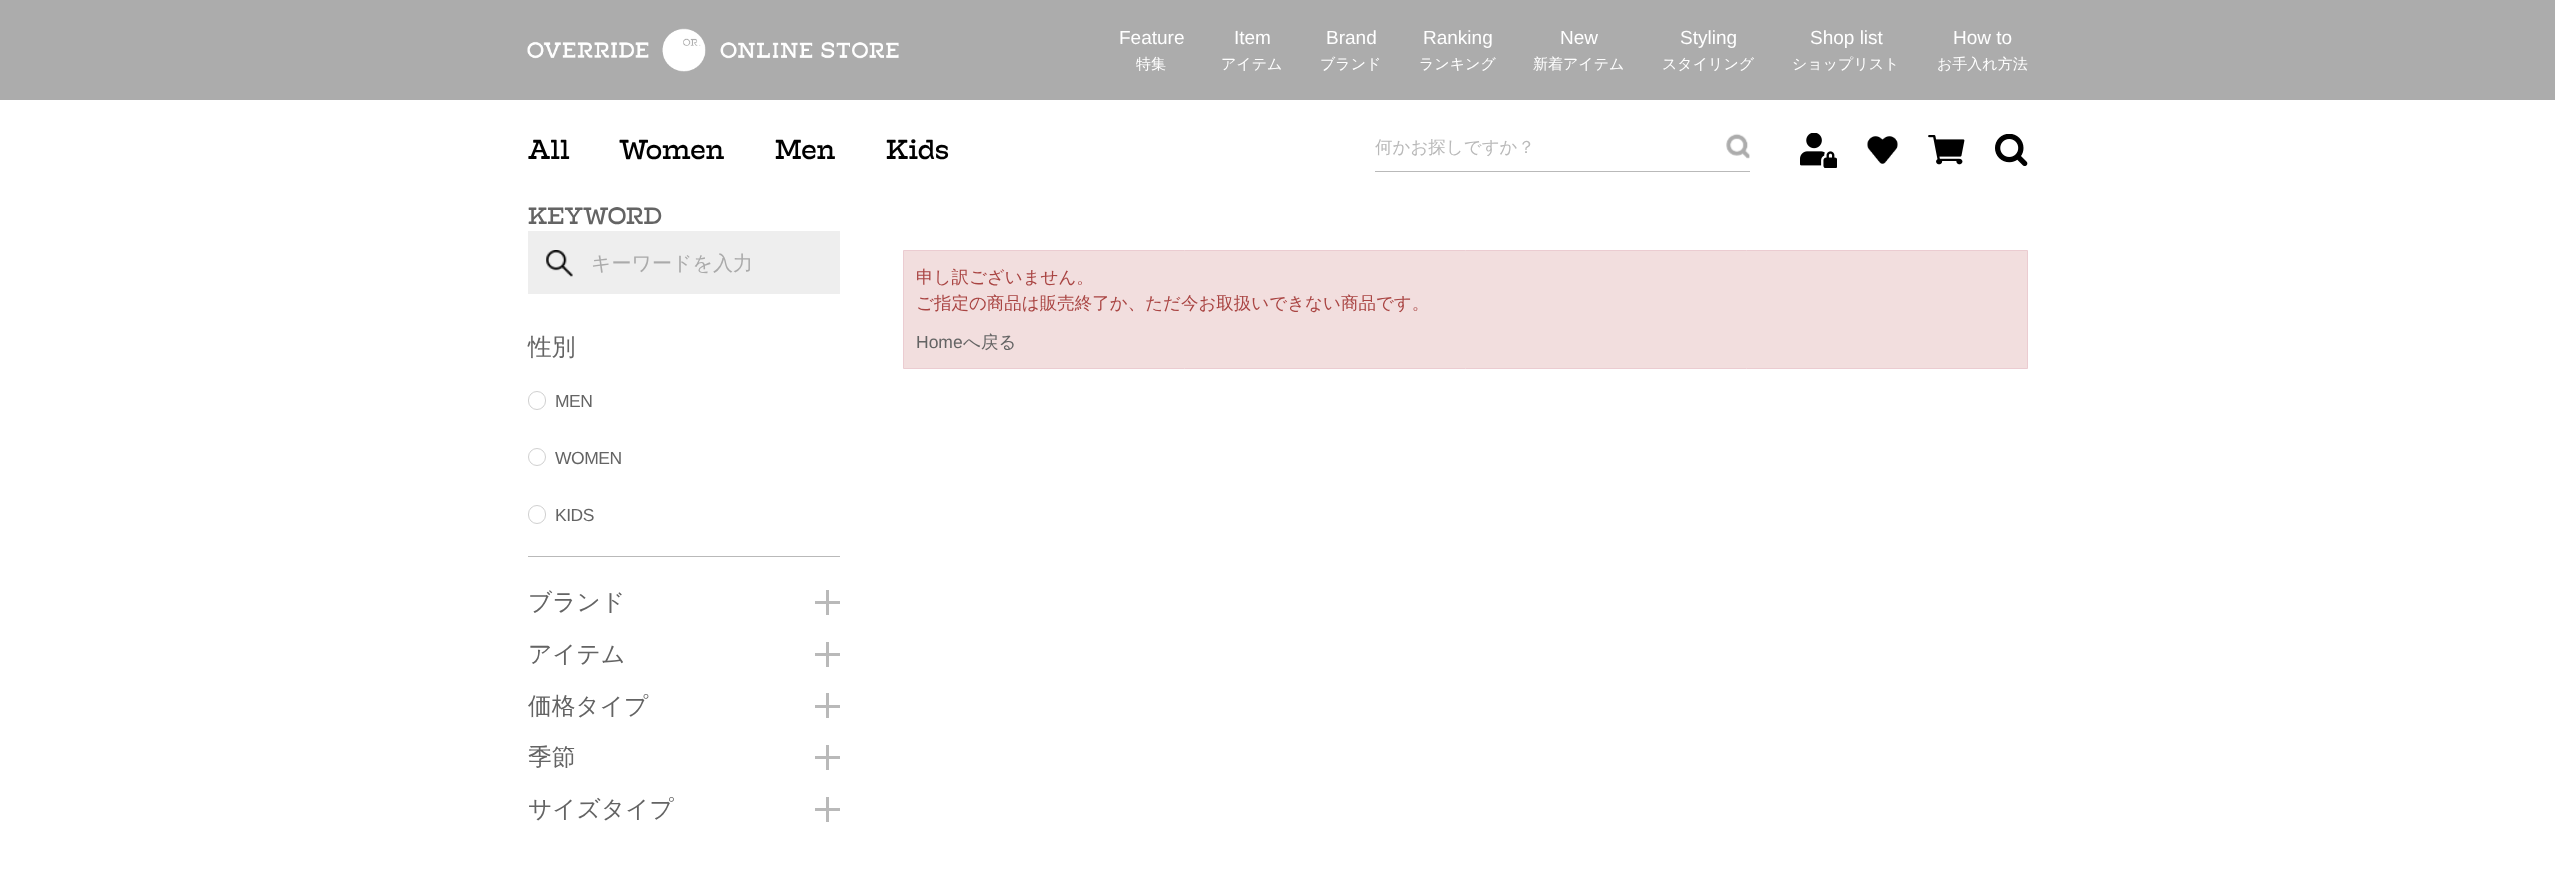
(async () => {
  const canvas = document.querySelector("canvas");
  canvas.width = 2555;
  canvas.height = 894;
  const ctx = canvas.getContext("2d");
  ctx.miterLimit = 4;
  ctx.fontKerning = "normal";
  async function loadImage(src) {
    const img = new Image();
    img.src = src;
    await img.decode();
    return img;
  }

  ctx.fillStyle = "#ffffff";
  ctx.fillRect(0, 0, 2555, 894);
  ctx.fillStyle = "#acacac";
  ctx.fillRect(0, 0, 2555, 100);
  ctx.drawImage(await loadImage("img/1.png"), 527, 28, 372, 44);
  ctx.fillStyle = "#b9b9b9";
  ctx.fillRect(1375, 171, 375, 1);
  ctx.drawImage(await loadImage("img/2.png"), 1726, 133, 24, 26);
  ctx.drawImage(await loadImage("img/3.png"), 1800, 133, 37, 35);
  ctx.drawImage(await loadImage("img/4.png"), 1867, 136, 31, 28);
  ctx.drawImage(await loadImage("img/5.png"), 1928, 135, 37, 30);
  ctx.drawImage(await loadImage("img/6.png"), 1995, 134, 33, 32);
  ctx.fillStyle = "#eeeeee";
  ctx.fillRect(528, 231, 312, 63);
  ctx.drawImage(await loadImage("img/7.png"), 546, 250, 27, 27);
  ctx.fillStyle = "#b9b9b9";
  ctx.fillRect(528, 556, 312, 1);
  ctx.beginPath();
  ctx.roundRect(528.5, 391.5, 17, 18, 8.5);
  ctx.strokeStyle = "#d0d0d0";
  ctx.stroke();
  ctx.beginPath();
  ctx.arc(537, 457, 8.5, 0, Math.PI * 2);
  ctx.stroke();
  ctx.beginPath();
  ctx.roundRect(528.5, 505.5, 17, 18, 8.5);
  ctx.stroke();
  for (const [x, y, w, h, color] of [
    [815, 601, 25, 3, "#b9b9b9"],
    [826, 590, 3, 25, "#b9b9b9"],
    [815, 653, 25, 3, "#b9b9b9"],
    [826, 642, 3, 25, "#b9b9b9"],
    [815, 705, 25, 3, "#b9b9b9"],
    [826, 693, 3, 25, "#b9b9b9"],
    [815, 756, 25, 3, "#b9b9b9"],
    [826, 745, 3, 25, "#b9b9b9"],
    [815, 808, 25, 3, "#b9b9b9"],
    [826, 797, 3, 25, "#b9b9b9"],
  ]) {
    ctx.fillStyle = color;
    ctx.fillRect(x, y, w, h);
  }
  ctx.fillStyle = "#f2dede";
  ctx.beginPath();
  ctx.rect(903.5, 250.5, 1124, 118);
  ctx.fill();
  ctx.strokeStyle = "#ebccd1";
  ctx.stroke();
  ctx.font = "19px Liberation Sans";
  ctx.fillStyle = "#ffffff";
  ctx.fillText("Feature", 1119, 44);
  ctx.font = "500 15px WenQuanYi Zen Hei";
  ctx.fillText("特集", 1136, 69);
  ctx.font = "19px Liberation Sans";
  ctx.fillText("Item", 1234, 44);
  ctx.font = "500 15px WenQuanYi Zen Hei";
  ctx.fillText("アイテム", 1221, 69);
  ctx.font = "19px Liberation Sans";
  ctx.fillText("Brand", 1326, 44);
  ctx.font = "500 15px WenQuanYi Zen Hei";
  ctx.fillText("ブランド", 1320, 69);
  ctx.font = "19px Liberation Sans";
  ctx.fillText("Ranking", 1423, 44);
  ctx.font = "500 15px WenQuanYi Zen Hei";
  ctx.fillText("ランキング", 1419, 69);
  ctx.font = "19px Liberation Sans";
  ctx.fillText("New", 1560, 44);
  ctx.font = "500 15px WenQuanYi Zen Hei";
  ctx.fillText("新着アイテム", 1533, 69);
  ctx.font = "19px Liberation Sans";
  ctx.fillText("Styling", 1680, 44);
  ctx.font = "500 15px WenQuanYi Zen Hei";
  ctx.fillText("スタイリング", 1662, 69);
  ctx.font = "19px Liberation Sans";
  ctx.fillText("Shop list", 1810, 44);
  ctx.font = "500 15px WenQuanYi Zen Hei";
  ctx.fillText("ショップリスト", 1792, 69);
  ctx.font = "19px Liberation Sans";
  ctx.fillText("How to", 1953, 44);
  ctx.font = "500 15px WenQuanYi Zen Hei";
  ctx.fillText("お手入れ方法", 1937, 69);
  ctx.font = "27.5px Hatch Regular";
  ctx.fillStyle = "#000000";
  for (const [text, x, y] of [
    ["All", 528, 159],
    ["Women", 619, 159],
    ["Men", 775, 159],
    ["Kids", 886, 159],
  ]) {
    ctx.fillText(text, x, y);
  }
  ctx.font = "500 17.5px WenQuanYi Zen Hei";
  ctx.fillStyle = "#b9b9b9";
  ctx.fillText("何かお探しですか？", 1375, 153);
  ctx.font = "23.75px Hatch Regular";
  ctx.fillStyle = "#646464";
  ctx.fillText("KEYWORD", 528, 224);
  ctx.font = "500 20px WenQuanYi Zen Hei";
  ctx.fillStyle = "#aaaaaa";
  ctx.fillText("キーワードを入力", 591, 270);
  ctx.font = "500 23.75px WenQuanYi Zen Hei";
  ctx.fillStyle = "#646464";
  ctx.fillText("性別", 528, 355);
  ctx.letterSpacing = "-0.5px";
  ctx.font = "17.5px Liberation Sans";
  for (const [text, x, y] of [
    ["MEN", 555, 407],
    ["WOMEN", 555, 464],
    ["KIDS", 555, 521],
  ]) {
    ctx.fillText(text, x, y);
  }
  ctx.letterSpacing = "0px";
  ctx.font = "500 23.75px WenQuanYi Zen Hei";
  for (const [text, x, y] of [
    ["ブランド", 528, 610],
    ["アイテム", 528, 662],
    ["価格タイプ", 528, 714],
    ["季節", 528, 765],
    ["サイズタイプ", 528, 817],
  ]) {
    ctx.fillText(text, x, y);
  }
  ctx.font = "500 17.5px WenQuanYi Zen Hei";
  ctx.fillStyle = "#a94442";
  ctx.fillText("申し訳ございません。", 916, 283);
  ctx.fillText("ご指定の商品は販売終了か、ただ今お取扱いできない商品です。", 916, 309);
  ctx.font = "17.5px Liberation Sans";
  ctx.fillStyle = "#646464";
  ctx.fillText("Home", 916, 348);
  ctx.font = "500 17.5px WenQuanYi Zen Hei";
  ctx.fillText("へ戻る", 963, 348);
})();
